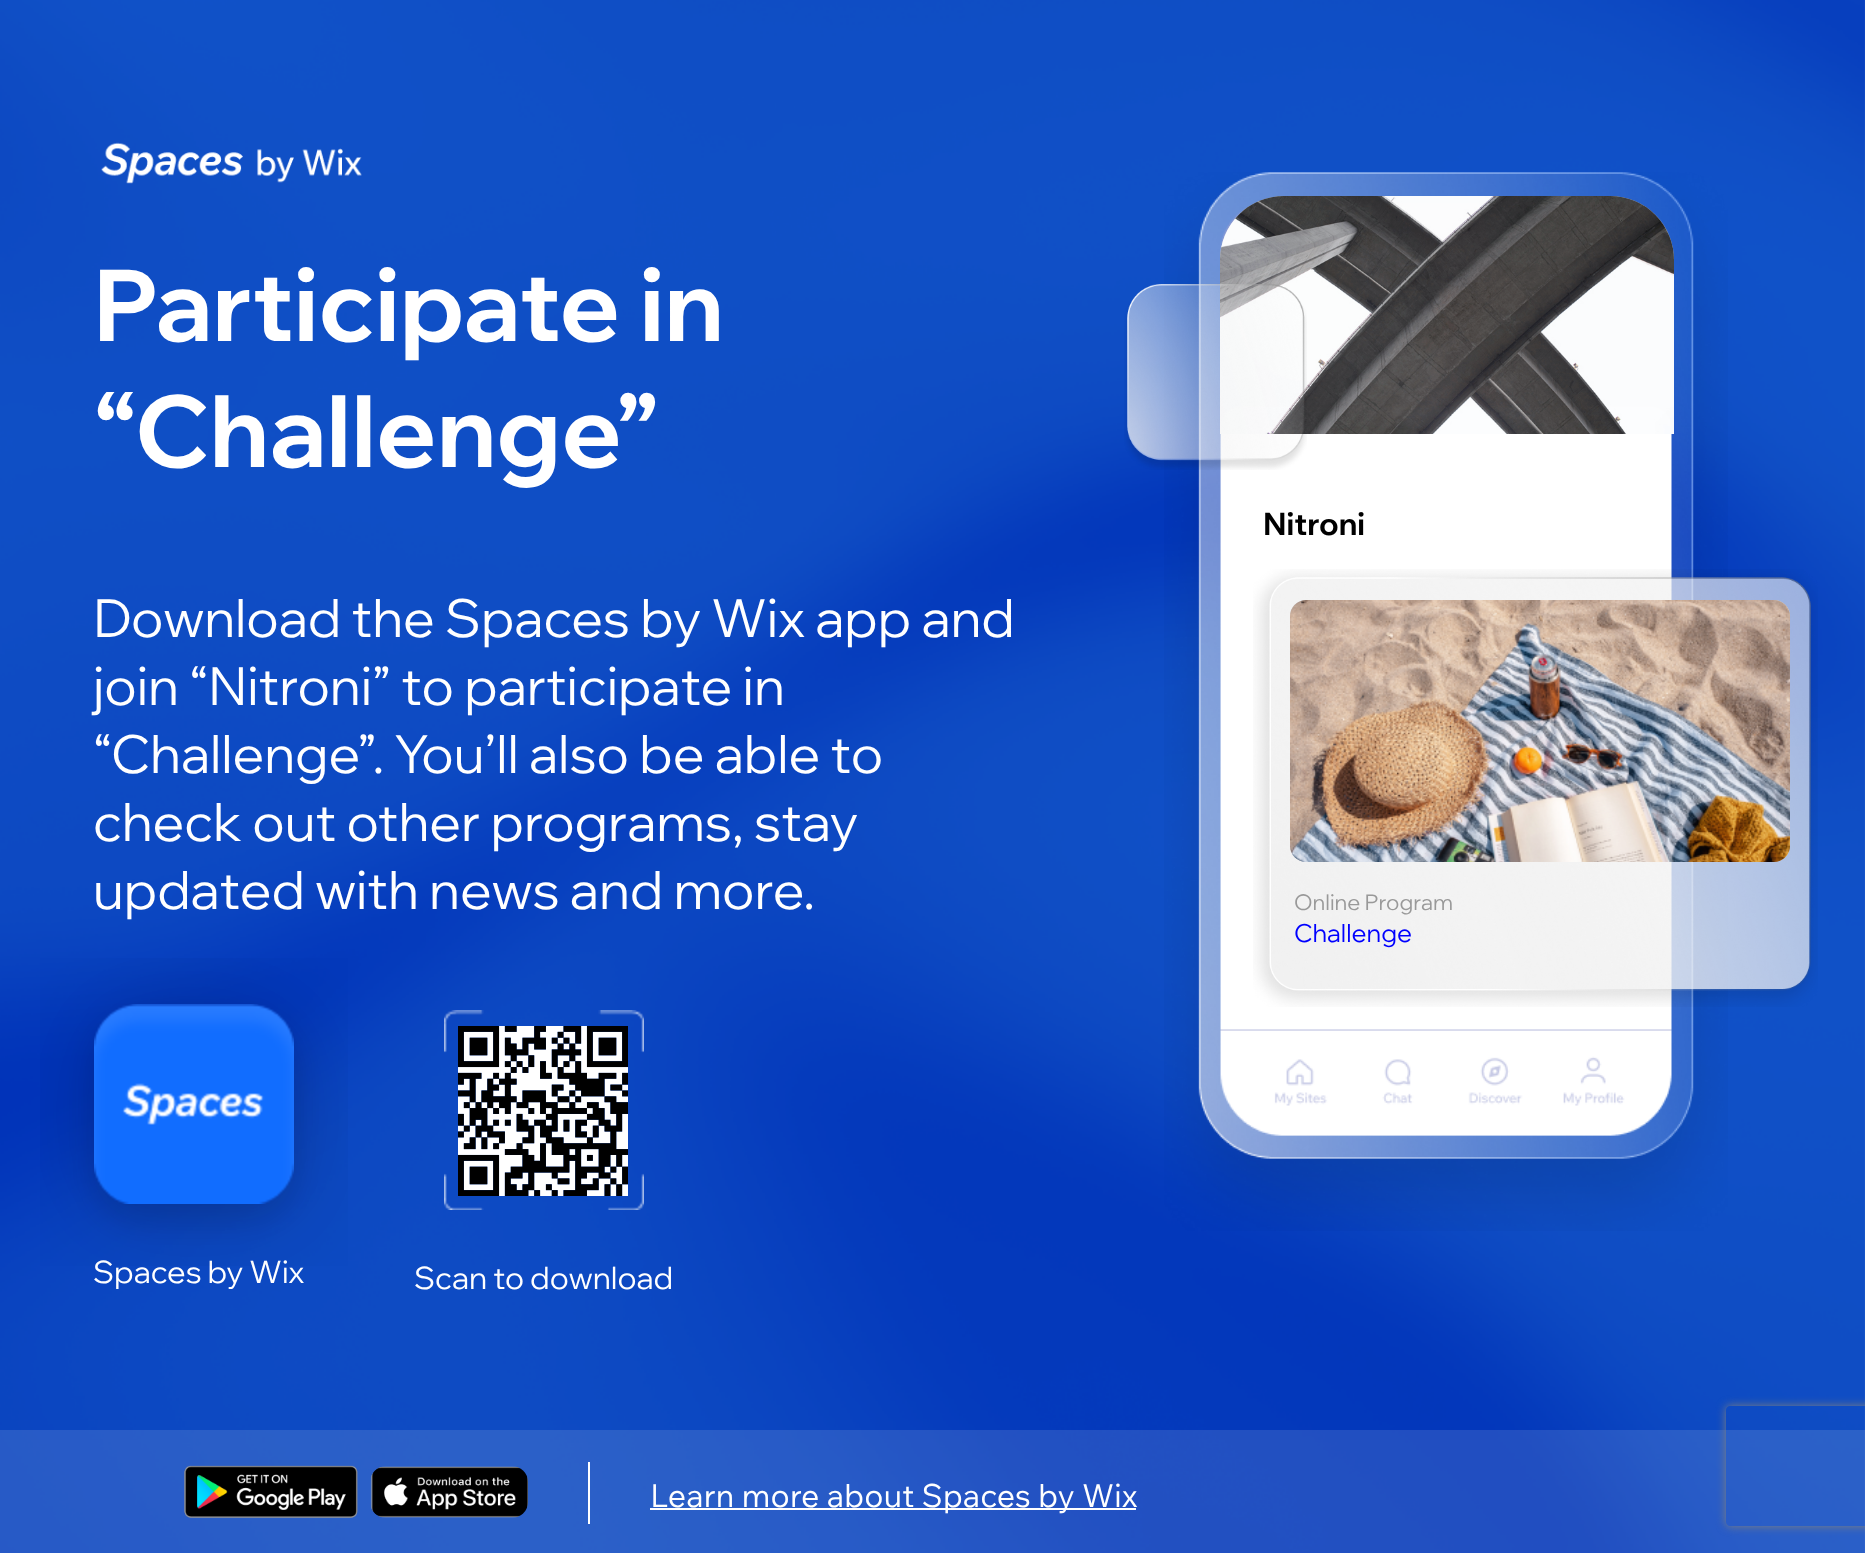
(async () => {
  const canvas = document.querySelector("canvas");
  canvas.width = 1865;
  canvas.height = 1553;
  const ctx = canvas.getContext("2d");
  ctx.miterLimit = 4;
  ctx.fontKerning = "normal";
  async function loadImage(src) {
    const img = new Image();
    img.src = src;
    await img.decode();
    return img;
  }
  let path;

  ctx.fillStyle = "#ffffff";
  ctx.fillRect(0, 0, 1865, 1553);
  ctx.drawImage(await loadImage("img/1.png"), 0, 0, 1865, 1553);
  ctx.drawImage(await loadImage("img/2.png"), 101, 142, 261, 42);
  ctx.drawImage(await loadImage("img/4.png"), 444, 1010, 200, 200);
  ctx.drawImage(await loadImage("img/5.png"), 458, 1026, 170, 170);
  ctx.drawImage(await loadImage("img/6.png"), 1164, 172, 564, 1059);
  ctx.fillStyle = "rgba(223, 229, 235, 0.9)";
  ctx.beginPath();
  ctx.roundRect(1220, 196, 454, 238, [64, 64, 0, 0]);
  ctx.fill();
  ctx.drawImage(await loadImage("img/8.png"), 1220, 196, 454, 238);
  ctx.drawImage(await loadImage("img/7.png"), 1124, 284, 183, 186);
  ctx.drawImage(await loadImage("img/9.png"), 1253, 569, 565, 438);
  ctx.fillStyle = "#dfe5eb";
  ctx.beginPath();
  ctx.roundRect(1290, 600, 500, 262, 16);
  ctx.fill();
  ctx.drawImage(await loadImage("img/10.png"), 1290, 600, 500, 262);
  ctx.fillStyle = "rgba(237, 237, 237, 0.13)";
  ctx.fillRect(0, 1430, 1865, 123);
  ctx.drawImage(await loadImage("img/11.png"), 184, 1465, 174, 53);
  ctx.drawImage(await loadImage("img/12.png"), 370, 1466, 158, 52);
  ctx.fillStyle = "#ffffff";
  ctx.fillRect(588, 1462, 2, 62);
  ctx.fillRect(650, 1508, 486, 2);
  ctx.save();
  path = new Path2D("M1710 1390H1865V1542H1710ZM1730 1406H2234C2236 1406 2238 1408 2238 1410V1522C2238 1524 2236 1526 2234 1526H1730C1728 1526 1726 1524 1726 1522V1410C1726 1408 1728 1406 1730 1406Z");
  ctx.clip(path, "evenodd");
  ctx.fillStyle = "#808080";
  ctx.filter = "blur(5px)";
  ctx.beginPath();
  ctx.roundRect(1726, 1406, 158, 120, 4);
  ctx.fill();
  ctx.filter = "none";
  ctx.restore();
  ctx.font = "bold 99.5px Wix Madefor Display";
  ctx.fillText("Participate in", 93, 341);
  ctx.fillText("“Challenge”", 93, 467);
  ctx.font = "52.8px Wix Madefor Display";
  for (const [text, x, y] of [
    ["Download the Spaces by Wix app and", 93, 637],
    ["join “Nitroni” to participate in", 93, 705],
    ["“Challenge”. You’ll also be able to", 93, 773],
    ["check out other programs, stay", 93, 841],
    ["updated with news and more.", 93, 909],
  ]) {
    ctx.fillText(text, x, y);
  }
  ctx.font = "31px Wix Madefor Display";
  ctx.fillText("Spaces by Wix", 93, 1283);
  ctx.drawImage(await loadImage("img/3.png"), 40, 958, 308, 308);
  ctx.fillText("Scan to download", 414, 1289);
  ctx.font = "bold 31px Wix Madefor Display";
  ctx.fillStyle = "#000000";
  ctx.fillText("Nitroni", 1263, 535);
  ctx.font = "21.75px Wix Madefor Display";
  ctx.fillStyle = "#999999";
  ctx.fillText("Online Program", 1294, 910);
  ctx.font = "25px Wix Madefor Display";
  ctx.fillStyle = "#0000ff";
  ctx.fillText("Challenge", 1294, 942);
  ctx.font = "32px Wix Madefor Text";
  ctx.fillStyle = "#ffffff";
  ctx.fillText("Learn more about Spaces by Wix", 650, 1507);
})();
